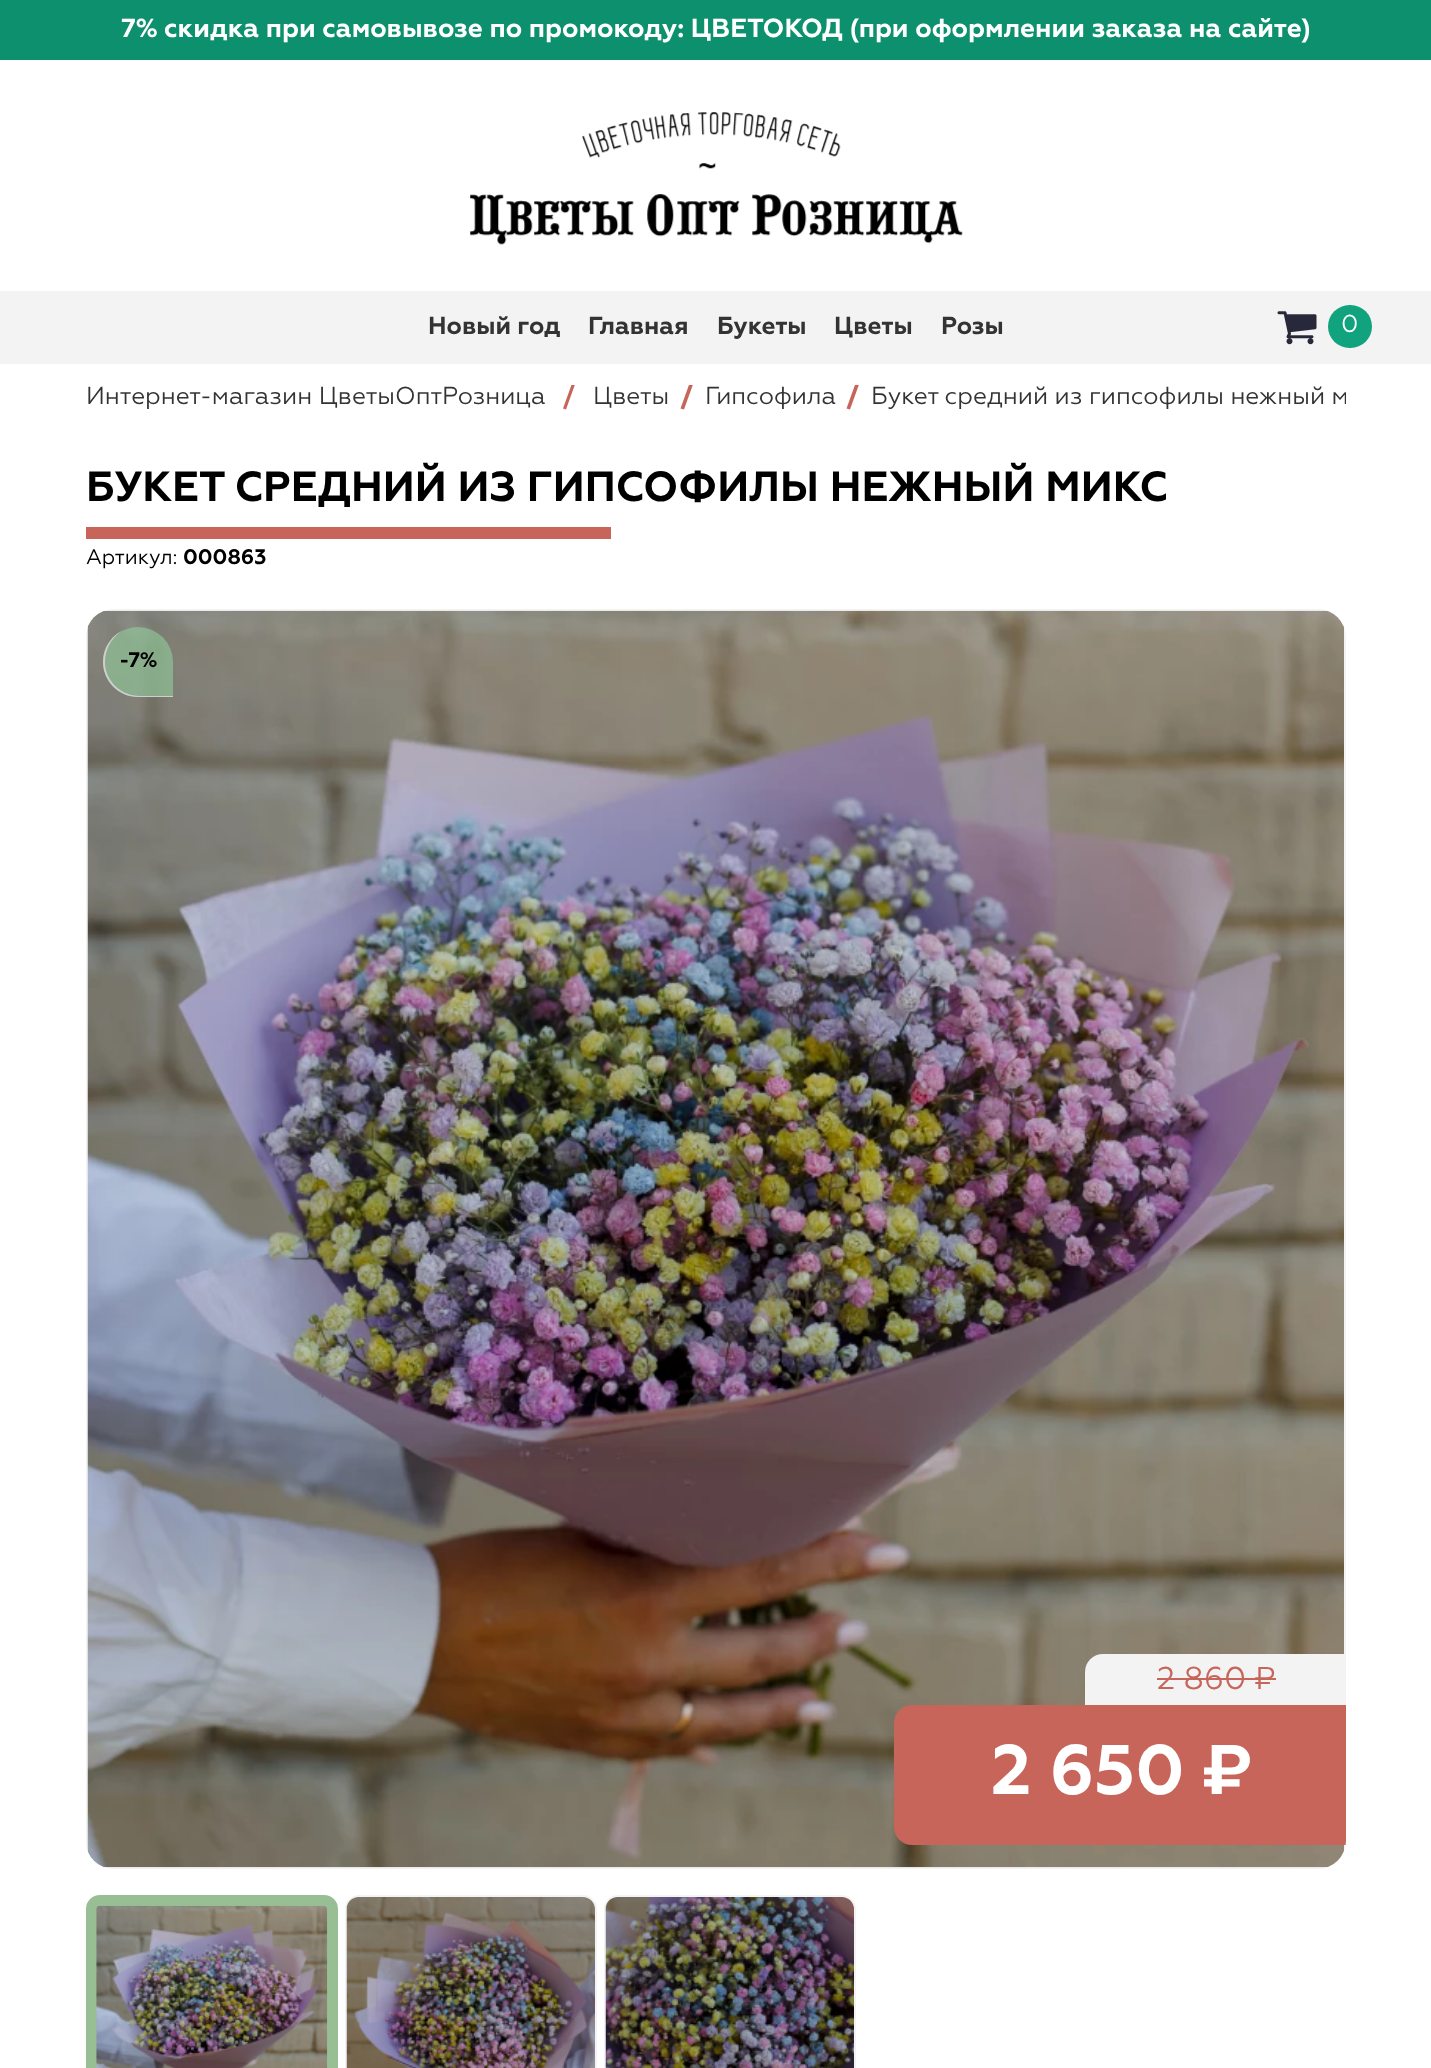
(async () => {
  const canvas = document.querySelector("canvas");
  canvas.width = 1431;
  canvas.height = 2068;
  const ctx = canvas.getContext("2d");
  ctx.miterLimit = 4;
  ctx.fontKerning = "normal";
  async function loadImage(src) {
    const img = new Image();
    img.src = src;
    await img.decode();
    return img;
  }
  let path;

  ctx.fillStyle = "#ffffff";
  ctx.fillRect(0, 0, 1431, 2068);
  ctx.fillStyle = "#0d906e";
  ctx.fillRect(0, 0, 1431, 60);
  ctx.drawImage(await loadImage("img/1.png"), 470, 112, 493, 133);
  ctx.fillStyle = "#f3f3f3";
  ctx.fillRect(0, 291, 1431, 73);
  ctx.drawImage(await loadImage("img/2.png"), 1277, 311, 40, 34);
  ctx.fillStyle = "#11a37d";
  ctx.beginPath();
  ctx.roundRect(1328, 305, 44, 43, 21.5);
  ctx.fill();
  ctx.save();
  ctx.beginPath();
  ctx.rect(86, 385, 1260, 25);
  ctx.clip();
  ctx.fillStyle = "#c7655b";
  path = new Path2D("M572.5 382L575.5 383L566 409.5L563 408.5Z");
  ctx.fill(path);
  path = new Path2D("M690 382L693.5 383L684 409.5L680.5 408.5Z");
  ctx.fill(path);
  path = new Path2D("M856 382L859.5 383L850 409.5L846.5 408.5Z");
  ctx.fill(path);
  ctx.restore();
  ctx.fillStyle = "#c7655b";
  ctx.fillRect(86, 527, 525, 12);
  ctx.fillStyle = "#f3f3f3";
  path = new Path2D("M86 637V1841C86 1845 87 1848 88 1851V627C87 630 86 633 86 637ZM104 611H1328C1325 610 1322 609 1318 609H114C110 609 107 610 104 611ZM1346 637C1346 633 1345 630 1344 627V1851C1345 1848 1346 1845 1346 1841ZM1318 1869C1322 1869 1325 1868 1328 1867H104C107 1868 110 1869 114 1869Z");
  ctx.fill(path, "evenodd");
  ctx.drawImage(await loadImage("img/3.png"), 87, 610, 1257, 1258);
  ctx.fillStyle = "rgba(144, 201, 153, 0.64)";
  ctx.beginPath();
  ctx.roundRect(103, 627, 70, 70, [35, 35, 0, 35]);
  ctx.fill();
  ctx.fillStyle = "#cfcfcf";
  path = new Path2D("M125 629C113 635 105 648 105 662C105 681 121 696 140 696H173V697H138C119 697 103 681 103 662C103 647 112 635 125 629Z");
  ctx.fill(path);
  ctx.fillStyle = "#f3f3f3";
  ctx.beginPath();
  ctx.roundRect(1085, 1654, 261, 105, [18, 0, 0, 18]);
  ctx.fill();
  ctx.fillStyle = "#c7655b";
  ctx.fillRect(1157, 1678, 119, 2);
  ctx.save();
  ctx.beginPath();
  ctx.roundRect(86, 609, 1260, 1260, 28);
  ctx.clip();
  ctx.beginPath();
  ctx.roundRect(894, 1705, 452, 140, [18, 0, 0, 18]);
  ctx.fill();
  ctx.restore();
  ctx.beginPath();
  ctx.roundRect(91.5, 1900.5, 241, 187, 8.5);
  ctx.strokeStyle = "#98bf94";
  ctx.lineWidth = 11;
  ctx.stroke();
  ctx.drawImage(await loadImage("img/4.png"), 96, 1905, 232, 163);
  ctx.beginPath();
  ctx.roundRect(346, 1896, 250, 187, 13);
  ctx.strokeStyle = "#f3f3f3";
  ctx.lineWidth = 2;
  ctx.stroke();
  ctx.drawImage(await loadImage("img/5.png"), 346, 1897, 249, 171);
  ctx.beginPath();
  ctx.roundRect(605, 1896, 250, 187, 13);
  ctx.stroke();
  ctx.drawImage(await loadImage("img/6.png"), 605, 1897, 249, 171);
  ctx.font = "bold 26.25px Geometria";
  ctx.fillStyle = "#ffffff";
  ctx.fillText("7% скидка при самовывозе по промокоду: ЦВЕТОКОД (при оформлении заказа на сайте)", 121, 37);
  ctx.font = "bold 24.5px Geometria";
  ctx.fillStyle = "#333333";
  for (const [text, x, y] of [
    ["Новый год", 428, 334],
    ["Главная", 588, 334],
    ["Букеты", 717, 334],
    ["Цветы", 834, 334],
    ["Розы", 941, 334],
  ]) {
    ctx.fillText(text, x, y);
  }
  ctx.font = "24.5px Geometria";
  ctx.fillStyle = "#ffffff";
  ctx.fillText("0", 1341, 332);
  ctx.fillStyle = "#333333";
  for (const [text, x, y] of [
    ["Интернет-магазин ЦветыОптРозница", 86, 404],
    ["Цветы", 593, 404],
    ["Гипсофила", 705, 404],
  ]) {
    ctx.fillText(text, x, y);
  }
  ctx.save();
  ctx.beginPath();
  ctx.rect(86, 385, 1260, 25);
  ctx.clip();
  ctx.fillText("Букет средний из гипсофилы нежный м", 871, 404);
  ctx.restore();
  ctx.font = "bold 42px Geometria";
  ctx.fillStyle = "#000000";
  ctx.fillText("БУКЕТ СРЕДНИЙ ИЗ ГИПСОФИЛЫ НЕЖНЫЙ МИКС", 86, 501);
  ctx.font = "21px Geometria";
  ctx.fillText("Артикул:", 86, 564);
  ctx.font = "bold 21px Geometria";
  ctx.fillText("000863", 183, 564);
  ctx.fillText("-7%", 119, 667);
  ctx.font = "31.5px Geometria";
  ctx.fillStyle = "#c7655b";
  ctx.fillText("2 860 ₽", 1157, 1689);
  ctx.font = "bold 70px Geometria";
  ctx.fillStyle = "#ffffff";
  ctx.fillText("2 650 ₽", 991, 1794);
})();
